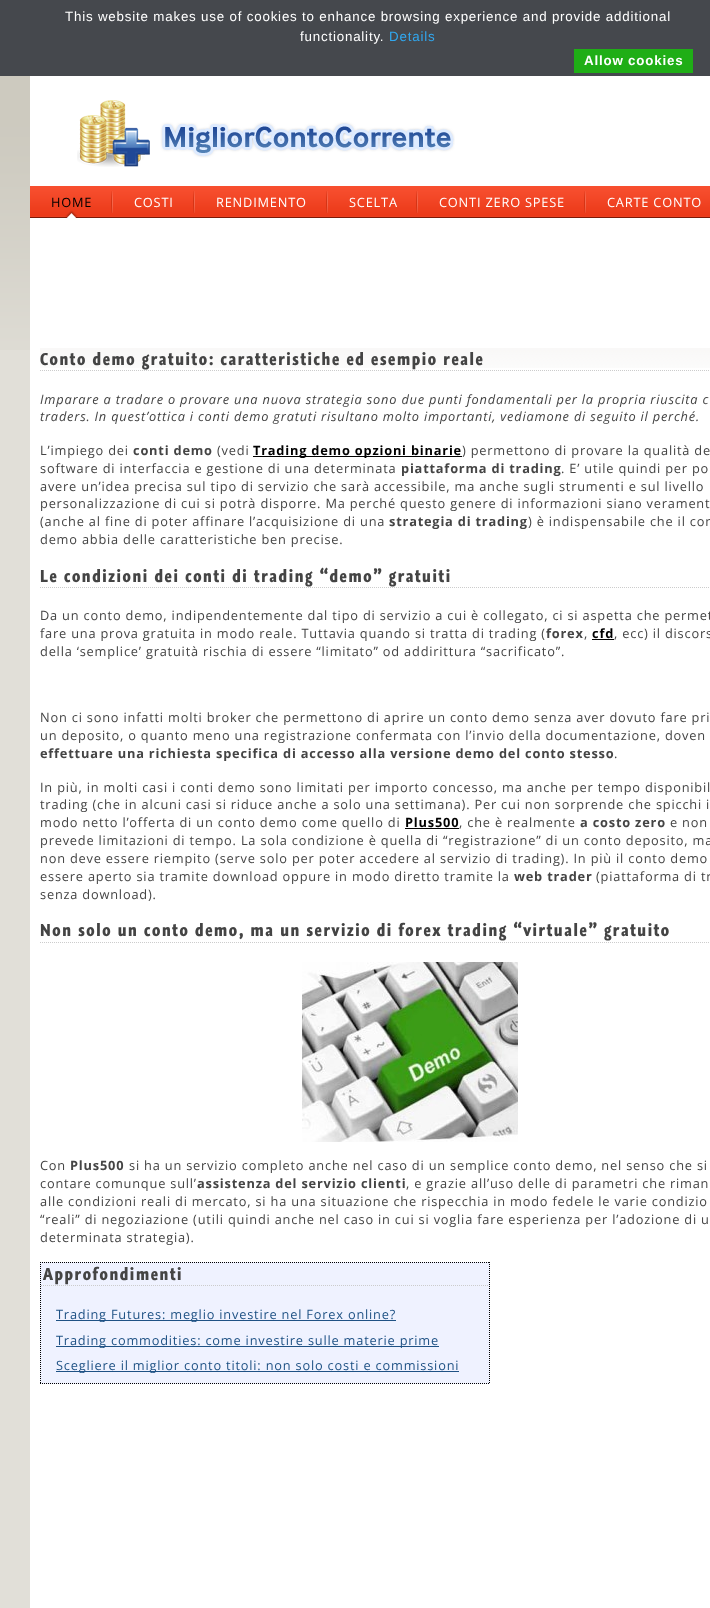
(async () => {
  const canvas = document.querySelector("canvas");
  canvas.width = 710;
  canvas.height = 1608;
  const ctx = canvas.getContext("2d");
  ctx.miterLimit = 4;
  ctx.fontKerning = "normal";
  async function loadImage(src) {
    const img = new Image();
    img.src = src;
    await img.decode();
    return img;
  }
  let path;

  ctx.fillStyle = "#e1dfd8";
  ctx.fillRect(0, 0, 710, 1608);
  ctx.drawImage(await loadImage("img/1.png"), 0, 76, 30, 274);
  for (const [x, y, w, h, color] of [
    [0, 0, 710, 76, "#45484d"],
    [574, 49, 119, 24, "#1fae16"],
    [30, 76, 680, 1532, "#ffffff"],
  ]) {
    ctx.fillStyle = color;
    ctx.fillRect(x, y, w, h);
  }
  ctx.drawImage(await loadImage("img/2.png"), 77, 100, 378, 67);
  ctx.drawImage(await loadImage("img/3.png"), 30, 186, 680, 32);
  ctx.drawImage(await loadImage("img/4.png"), 111, 191, 2, 22);
  ctx.drawImage(await loadImage("img/5.png"), 65, 210, 13, 8);
  ctx.drawImage(await loadImage("img/4.png"), 193, 191, 2, 22);
  ctx.drawImage(await loadImage("img/4.png"), 326, 191, 2, 22);
  ctx.drawImage(await loadImage("img/4.png"), 416, 191, 2, 22);
  ctx.drawImage(await loadImage("img/4.png"), 584, 191, 2, 22);
  ctx.drawImage(await loadImage("img/6.png"), 40, 348, 670, 20);
  path = new Path2D("M40 370.5H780");
  ctx.strokeStyle = "#cccccc";
  ctx.setLineDash([1, 1]);
  ctx.stroke(path);
  ctx.fillStyle = "#000000";
  ctx.fillRect(253, 456, 209, 1);
  path = new Path2D("M40 587.5H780");
  ctx.stroke(path);
  ctx.fillRect(592, 639, 22, 1);
  ctx.fillRect(405, 828, 54, 1);
  path = new Path2D("M40 942.5H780");
  ctx.stroke(path);
  ctx.drawImage(await loadImage("img/7.png"), 302, 962, 216, 180);
  ctx.fillStyle = "#eff2ff";
  ctx.fillRect(40, 1262, 450, 122);
  path = new Path2D("M40 1262.5H490");
  ctx.strokeStyle = "#000000";
  ctx.stroke(path);
  path = new Path2D("M489.5 1262V1384");
  ctx.stroke(path);
  path = new Path2D("M40 1383.5H490");
  ctx.stroke(path);
  path = new Path2D("M40.5 1262V1384");
  ctx.stroke(path);
  path = new Path2D("M41 1285.5H489");
  ctx.strokeStyle = "#cccccc";
  ctx.stroke(path);
  for (const [x, y, w, h, color] of [
    [56, 1320, 340, 1, "#1f5285"],
    [56, 1346, 383, 1, "#1f5285"],
    [56, 1371, 403, 1, "#1f5285"],
  ]) {
    ctx.fillStyle = color;
    ctx.fillRect(x, y, w, h);
  }
  ctx.letterSpacing = "0.8px";
  ctx.font = "13.35px Liberation Sans";
  ctx.fillStyle = "#ffffff";
  ctx.fillText("This website makes use of cookies to enhance browsing experience and provide additional", 65, 21);
  ctx.fillText("functionality.", 300, 41);
  ctx.fillStyle = "#31a8f0";
  ctx.fillText("Details", 389, 41);
  ctx.font = "bold 13.35px Liberation Sans";
  ctx.fillStyle = "#ffffff";
  ctx.fillText("Allow cookies", 584, 65);
  ctx.font = "12.8px Open Sans";
  ctx.fillStyle = "#000000";
  ctx.fillText("HOME", 51, 207);
  ctx.fillStyle = "#ffffff";
  for (const [text, x, y] of [
    ["COSTI", 134, 207],
    ["RENDIMENTO", 216, 207],
    ["SCELTA", 349, 207],
    ["CONTI ZERO SPESE", 439, 207],
    ["CARTE CONTO", 607, 207],
  ]) {
    ctx.fillText(text, x, y);
  }
  ctx.letterSpacing = "1.6px";
  ctx.font = "bold 16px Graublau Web";
  ctx.fillStyle = "#444444";
  ctx.fillText("Conto demo gratuito: caratteristiche ed esempio reale", 40, 365);
  ctx.letterSpacing = "0.8px";
  ctx.font = "italic 12.8px Open Sans";
  ctx.fillText("Imparare a tradare o provare una nuova strategia sono due punti fondamentali per la propria riuscita c", 40, 404);
  ctx.fillText("traders. In quest’ottica i conti demo gratuti risultano molto importanti, vediamone di seguito il perché.", 40, 421);
  ctx.font = "12.8px Open Sans";
  ctx.fillText("L’impiego dei", 40, 455);
  ctx.font = "bold 12.8px Open Sans";
  ctx.fillText("conti demo", 133, 455);
  ctx.font = "12.8px Open Sans";
  ctx.fillText("(vedi", 217, 455);
  ctx.font = "bold 12.8px Open Sans";
  ctx.fillStyle = "#000000";
  ctx.fillText("Trading demo opzioni binarie", 253, 455);
  ctx.font = "12.8px Open Sans";
  ctx.fillStyle = "#444444";
  ctx.fillText(") permettono di provare la qualità de", 462, 455);
  ctx.fillText("software di interfaccia e gestione di una determinata", 40, 473);
  ctx.font = "bold 12.8px Open Sans";
  ctx.fillText("piattaforma di trading", 401, 473);
  ctx.font = "12.8px Open Sans";
  for (const [text, x, y] of [
    [". E’ utile quindi per po", 561, 473],
    ["avere un’idea precisa sul tipo di servizio che sarà accessibile, ma anche sugli strumenti e sul livello", 40, 491],
    ["personalizzazione di cui si potrà disporre. Ma perché questo genere di informazioni siano verament", 40, 508],
    ["(anche al fine di poter affinare l’acquisizione di una", 40, 526],
  ]) {
    ctx.fillText(text, x, y);
  }
  ctx.font = "bold 12.8px Open Sans";
  ctx.fillText("strategia di trading", 389, 526);
  ctx.font = "12.8px Open Sans";
  ctx.fillText(") è indispensabile che il con", 528, 526);
  ctx.fillText("demo abbia delle caratteristiche ben precise.", 40, 544);
  ctx.letterSpacing = "1.6px";
  ctx.font = "bold 16px Graublau Web";
  ctx.fillText("Le condizioni dei conti di trading “demo” gratuiti", 40, 582);
  ctx.letterSpacing = "0.8px";
  ctx.font = "12.8px Open Sans";
  ctx.fillText("Da un conto demo, indipendentemente dal tipo di servizio a cui è collegato, ci si aspetta che permet", 40, 620);
  ctx.fillText("fare una prova gratuita in modo reale. Tuttavia quando si tratta di trading (", 40, 638);
  ctx.font = "bold 12.8px Open Sans";
  ctx.fillText("forex", 546, 638);
  ctx.font = "12.8px Open Sans";
  ctx.fillText(",", 584, 638);
  ctx.font = "bold 12.8px Open Sans";
  ctx.fillStyle = "#000000";
  ctx.fillText("cfd", 592, 638);
  ctx.font = "12.8px Open Sans";
  ctx.fillStyle = "#444444";
  for (const [text, x, y] of [
    [", ecc) il discors", 614, 638],
    ["della ‘semplice’ gratuità rischia di essere “limitato” od addirittura “sacrificato”.", 40, 656],
    ["Non ci sono infatti molti broker che permettono di aprire un conto demo senza aver dovuto fare pri", 40, 722],
    ["un deposito, o quanto meno una registrazione confermata con l’invio della documentazione, doven", 40, 740],
  ]) {
    ctx.fillText(text, x, y);
  }
  ctx.font = "bold 12.8px Open Sans";
  ctx.fillText("effettuare una richiesta specifica di accesso alla versione demo del conto stesso", 40, 758);
  ctx.font = "12.8px Open Sans";
  for (const [text, x, y] of [
    [".", 614, 758],
    ["In più, in molti casi i conti demo sono limitati per importo concesso, ma anche per tempo disponibil", 40, 792],
    ["trading (che in alcuni casi si riduce anche a solo una settimana). Per cui non sorprende che spicchi i", 40, 809],
    ["modo netto l’offerta di un conto demo come quello di", 40, 827],
  ]) {
    ctx.fillText(text, x, y);
  }
  ctx.font = "bold 12.8px Open Sans";
  ctx.fillStyle = "#000000";
  ctx.fillText("Plus500", 405, 827);
  ctx.font = "12.8px Open Sans";
  ctx.fillStyle = "#444444";
  ctx.fillText(", che è realmente", 459, 827);
  ctx.font = "bold 12.8px Open Sans";
  ctx.fillText("a costo zero", 580, 827);
  ctx.font = "12.8px Open Sans";
  for (const [text, x, y] of [
    ["e non", 670, 827],
    ["prevede limitazioni di tempo. La sola condizione è quella di “registrazione” di un conto deposito, ma", 40, 845],
    ["non deve essere riempito (serve solo per poter accedere al servizio di trading). In più il conto demo", 40, 863],
    ["essere aperto sia tramite download oppure in modo diretto tramite la", 40, 881],
  ]) {
    ctx.fillText(text, x, y);
  }
  ctx.font = "bold 12.8px Open Sans";
  ctx.fillText("web trader", 514, 881);
  ctx.font = "12.8px Open Sans";
  ctx.fillText("(piattaforma di tr", 596, 881);
  ctx.fillText("senza download).", 40, 899);
  ctx.letterSpacing = "1.6px";
  ctx.font = "bold 16px Graublau Web";
  ctx.fillText("Non solo un conto demo, ma un servizio di forex trading “virtuale” gratuito", 40, 936);
  ctx.letterSpacing = "0.8px";
  ctx.font = "12.8px Open Sans";
  ctx.fillText("Con", 40, 1170);
  ctx.font = "bold 12.8px Open Sans";
  ctx.fillText("Plus500", 70, 1170);
  ctx.font = "12.8px Open Sans";
  ctx.fillText("si ha un servizio completo anche nel caso di un semplice conto demo, nel senso che si", 129, 1170);
  ctx.fillText("contare comunque sull’", 40, 1188);
  ctx.font = "bold 12.8px Open Sans";
  ctx.fillText("assistenza del servizio clienti", 197, 1188);
  ctx.font = "12.8px Open Sans";
  for (const [text, x, y] of [
    [", e grazie all’uso delle di parametri che riman", 406, 1188],
    ["alle condizioni reali di mercato, si ha una situazione che rispecchia in modo fedele le varie condizio", 40, 1206],
    ["“reali” di negoziazione (utili quindi anche nel caso in cui si voglia fare esperienza per l’adozione di u", 40, 1224],
    ["determinata strategia).", 40, 1242],
  ]) {
    ctx.fillText(text, x, y);
  }
  ctx.letterSpacing = "1.6px";
  ctx.font = "bold 16px Graublau Web";
  ctx.fillText("Approfondimenti", 43, 1280);
  ctx.letterSpacing = "0.8px";
  ctx.font = "12.8px Open Sans";
  ctx.fillStyle = "#1f5285";
  for (const [text, x, y] of [
    ["Trading Futures: meglio investire nel Forex online?", 56, 1319],
    ["Trading commodities: come investire sulle materie prime", 56, 1345],
    ["Scegliere il miglior conto titoli: non solo costi e commissioni", 56, 1370],
  ]) {
    ctx.fillText(text, x, y);
  }
})();
